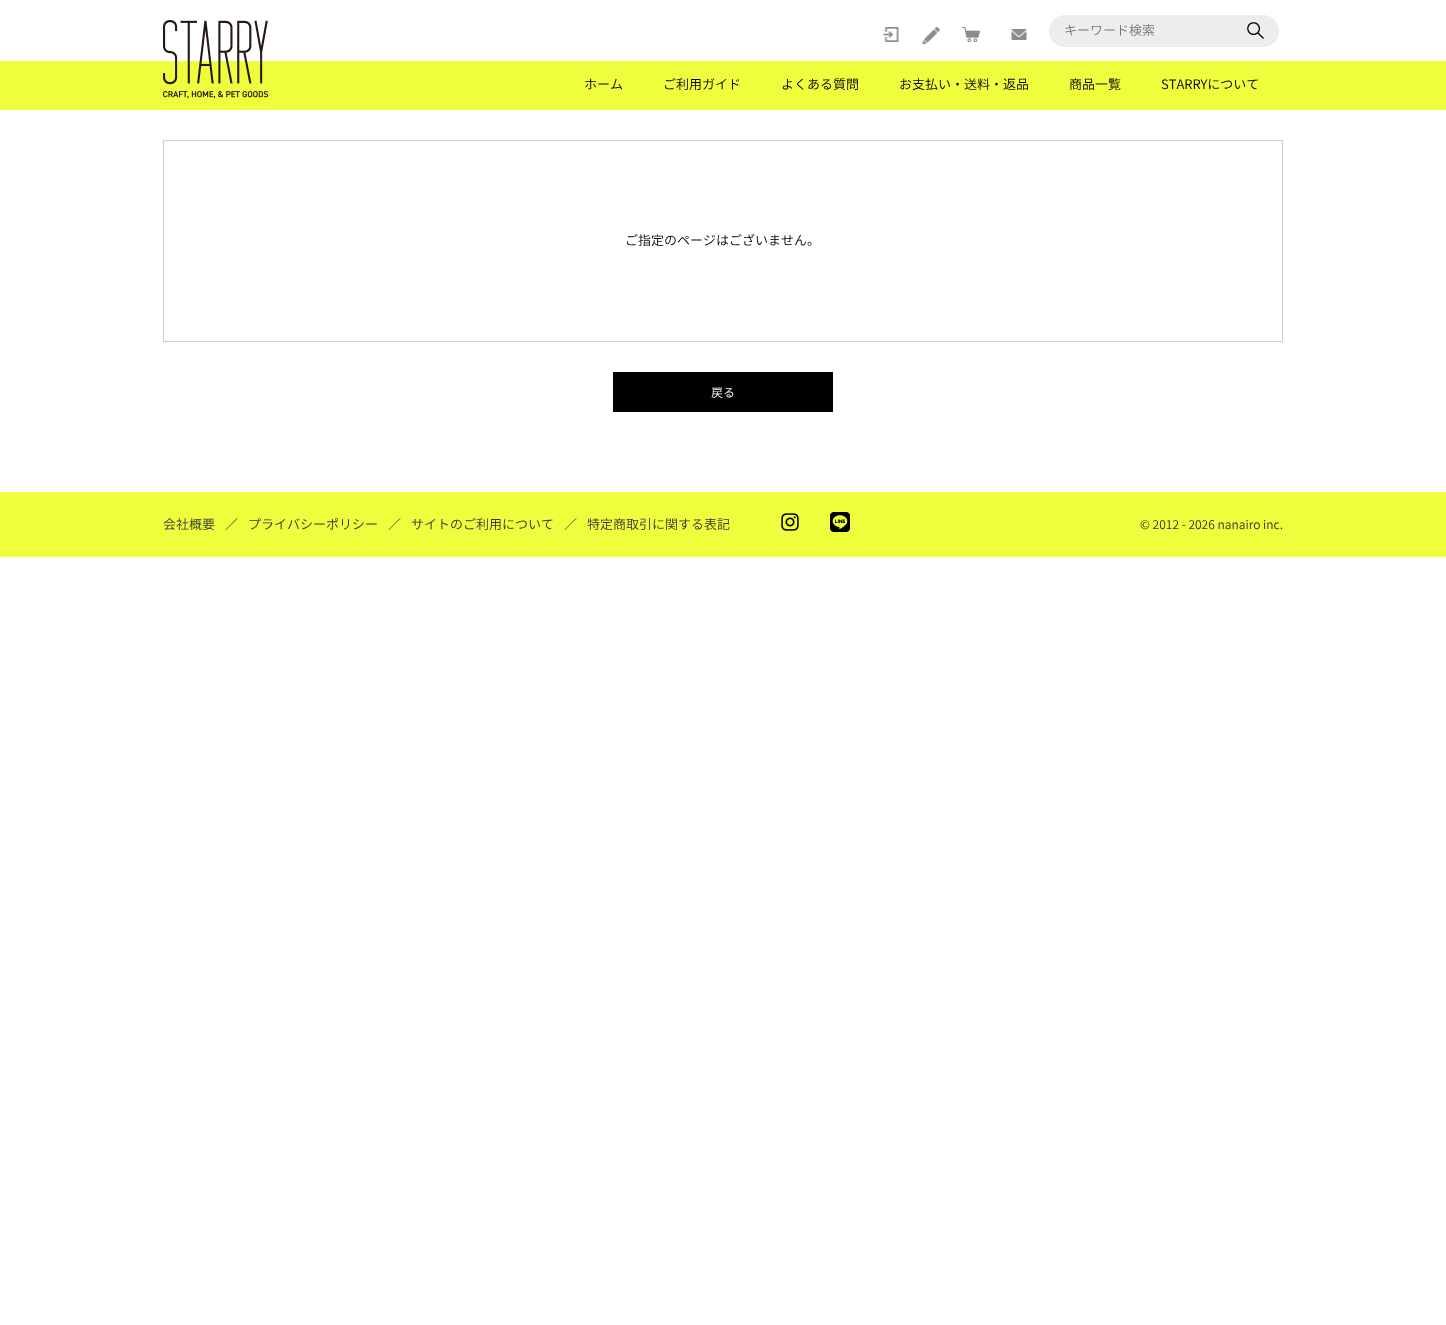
(async () => {
  const canvas = document.querySelector("canvas");
  canvas.width = 1446;
  canvas.height = 1325;
  const ctx = canvas.getContext("2d");
  ctx.miterLimit = 4;
  ctx.fontKerning = "normal";
  async function loadImage(src) {
    const img = new Image();
    img.src = src;
    await img.decode();
    return img;
  }

  ctx.fillStyle = "#ffffff";
  ctx.fillRect(0, 0, 1446, 1325);
  ctx.fillStyle = "#eefe3c";
  ctx.fillRect(0, 61, 1446, 49);
  ctx.drawImage(await loadImage("img/1.png"), 163, 20, 105, 79);
  ctx.drawImage(await loadImage("img/2.png"), 883, 27, 16, 15);
  ctx.drawImage(await loadImage("img/3.png"), 922, 27, 18, 18);
  ctx.drawImage(await loadImage("img/4.png"), 962, 27, 18, 15);
  ctx.drawImage(await loadImage("img/5.png"), 1011, 29, 16, 11);
  ctx.fillStyle = "#ededed";
  ctx.beginPath();
  ctx.roundRect(1049, 15, 230, 32, 16);
  ctx.fill();
  ctx.drawImage(await loadImage("img/6.png"), 1247, 22, 17, 17);
  ctx.strokeStyle = "#cccccc";
  ctx.strokeRect(163.5, 140.5, 1119, 201);
  ctx.fillStyle = "#000000";
  ctx.fillRect(613, 372, 220, 40);
  ctx.fillStyle = "#eefe3c";
  ctx.fillRect(0, 492, 1446, 65);
  ctx.drawImage(await loadImage("img/7.png"), 781, 513, 18, 18);
  ctx.drawImage(await loadImage("img/8.png"), 830, 512, 20, 20);
  ctx.font = "300 13px Noto Sans CJK JP";
  ctx.fillStyle = "#757575";
  ctx.fillText("キーワード検索", 1064, 35);
  ctx.fillStyle = "#000000";
  for (const [text, x, y] of [
    ["ホーム", 584, 89],
    ["ご利用ガイド", 663, 89],
    ["よくある質問", 781, 89],
    ["お支払い・送料・返品", 899, 89],
    ["商品一覧", 1069, 89],
    ["STARRYについて", 1161, 89],
    ["ご指定のページはございません。", 625, 245],
  ]) {
    ctx.fillText(text, x, y);
  }
  ctx.font = "300 12px Noto Sans CJK JP";
  ctx.fillStyle = "#ffffff";
  ctx.fillText("戻る", 711, 397);
  ctx.font = "300 13px Noto Sans CJK JP";
  ctx.fillStyle = "#333333";
  for (const [text, x, y] of [
    ["会社概要", 163, 529],
    ["／", 225, 529],
    ["プライバシーポリシー", 248, 529],
    ["／", 388, 529],
    ["サイトのご利用について", 411, 529],
    ["／", 564, 529],
    ["特定商取引に関する表記", 587, 529],
  ]) {
    ctx.fillText(text, x, y);
  }
  ctx.font = "300 12px Noto Sans CJK JP";
  ctx.fillText("© 2012 - 2026 nanairo inc.", 1140, 529);
})();
